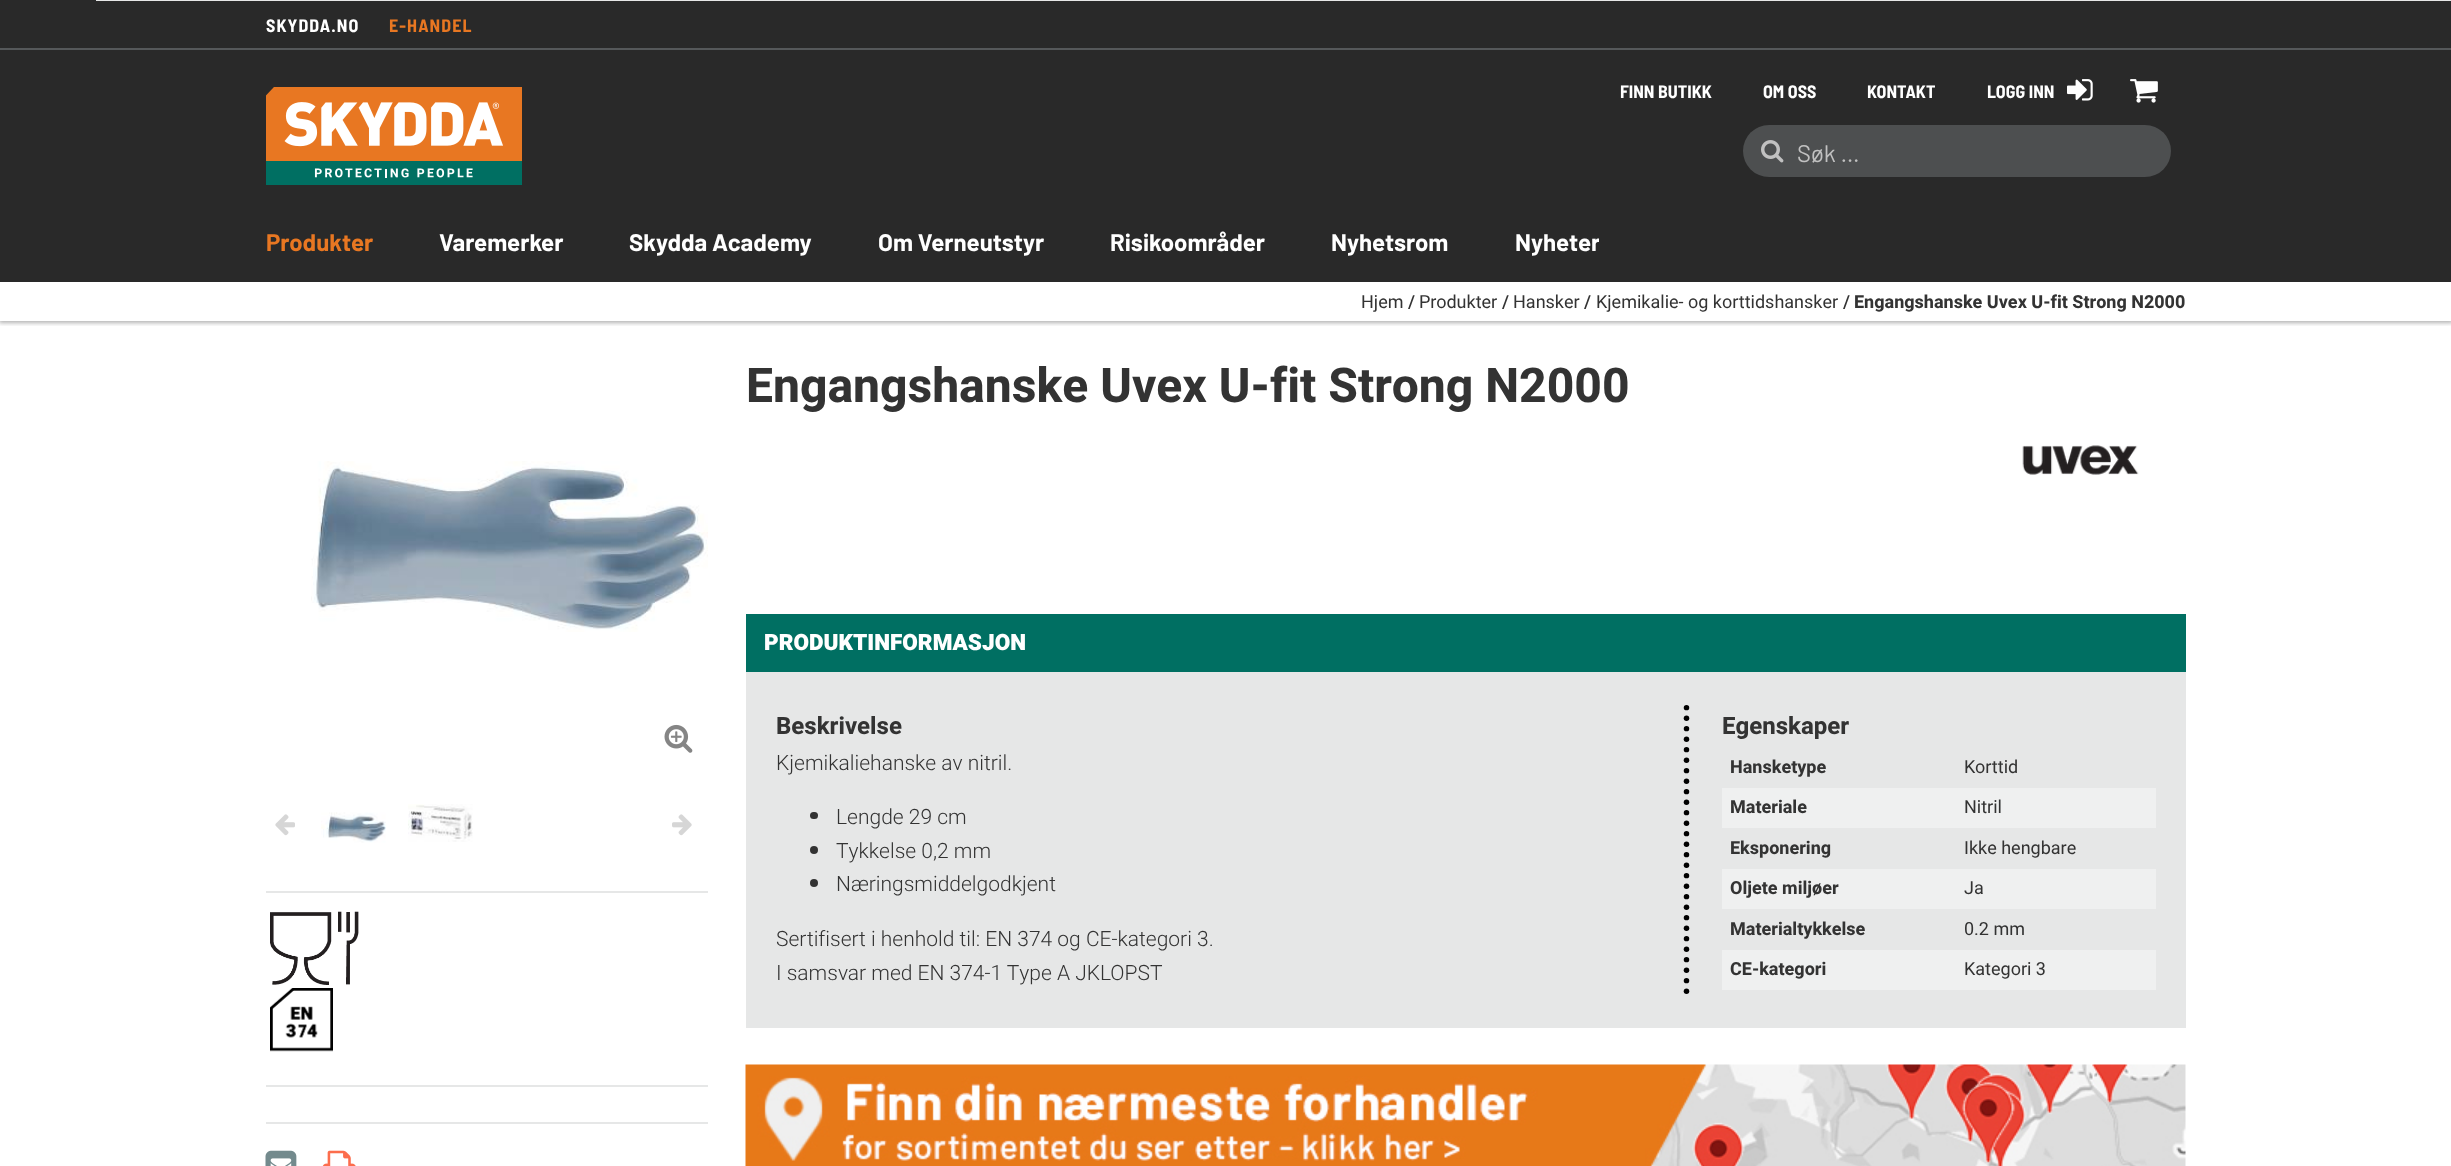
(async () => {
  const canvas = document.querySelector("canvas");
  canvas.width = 2451;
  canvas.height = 1166;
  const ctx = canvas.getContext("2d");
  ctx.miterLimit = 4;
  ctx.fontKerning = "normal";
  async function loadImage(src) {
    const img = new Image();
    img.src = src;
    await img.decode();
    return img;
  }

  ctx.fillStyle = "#ffffff";
  ctx.fillRect(0, 0, 2451, 1166);
  ctx.save();
  ctx.beginPath();
  ctx.rect(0, 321, 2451, 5);
  ctx.clip();
  ctx.fillStyle = "rgba(0, 0, 0, 0.3)";
  ctx.filter = "blur(2px)";
  ctx.beginPath();
  ctx.rect(-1, -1, 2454, 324);
  ctx.fill();
  ctx.filter = "none";
  ctx.restore();
  for (const [x, y, w, h, color] of [
    [0, 0, 2451, 48, "#292929"],
    [96, 0, 2355, 1, "#e6e7e7"],
    [0, 48, 2451, 2, "#55585a"],
    [0, 50, 2451, 232, "#292929"],
  ]) {
    ctx.fillStyle = color;
    ctx.fillRect(x, y, w, h);
  }
  ctx.drawImage(await loadImage("img/1.png"), 266, 87, 256, 98);
  ctx.drawImage(await loadImage("img/2.png"), 2067, 79, 26, 22);
  ctx.drawImage(await loadImage("img/3.png"), 2130, 79, 28, 24);
  ctx.fillStyle = "#4d4f50";
  ctx.beginPath();
  ctx.roundRect(1743, 125, 428, 52, 26);
  ctx.fill();
  ctx.drawImage(await loadImage("img/4.png"), 1761, 140, 23, 23);
  ctx.drawImage(await loadImage("img/5.png"), 311, 461, 397, 171);
  ctx.drawImage(await loadImage("img/6.png"), 664, 724, 29, 29);
  ctx.drawImage(await loadImage("img/7.png"), 275, 814, 20, 22);
  ctx.drawImage(await loadImage("img/8.png"), 321, 812, 65, 31);
  ctx.drawImage(await loadImage("img/9.png"), 408, 804, 65, 38);
  ctx.drawImage(await loadImage("img/10.png"), 672, 814, 20, 22);
  ctx.fillStyle = "#e6e7e7";
  ctx.fillRect(266, 891, 442, 2);
  ctx.drawImage(await loadImage("img/11.png"), 270, 911, 89, 74);
  ctx.drawImage(await loadImage("img/12.png"), 270, 988, 63, 64);
  ctx.fillRect(266, 1085, 442, 2);
  ctx.fillRect(266, 1122, 442, 2);
  ctx.drawImage(await loadImage("img/13.png"), 265, 1150, 32, 16);
  ctx.drawImage(await loadImage("img/14.png"), 322, 1150, 34, 16);
  ctx.drawImage(await loadImage("img/15.png"), 2022, 445, 117, 30);
  ctx.fillStyle = "#006f62";
  ctx.fillRect(746, 614, 1440, 58);
  ctx.fillStyle = "#e6e7e7";
  ctx.fillRect(746, 672, 1440, 356);
  ctx.fillStyle = "#333333";
  ctx.beginPath();
  ctx.roundRect(810, 812, 8, 7, 3.5);
  ctx.fill();
  ctx.beginPath();
  ctx.arc(814, 850, 4, 0, Math.PI * 2);
  ctx.fill();
  ctx.beginPath();
  ctx.arc(814, 883, 4, 0, Math.PI * 2);
  ctx.fill();
  ctx.drawImage(await loadImage("img/16.png"), 1683, 705, 7, 289);
  for (const [x, y, w, h, color] of [
    [1722, 788, 434, 40, "#eff0f0"],
    [1722, 869, 434, 40, "#eff0f0"],
    [1722, 950, 434, 40, "#eff0f0"],
  ]) {
    ctx.fillStyle = color;
    ctx.fillRect(x, y, w, h);
  }
  ctx.drawImage(await loadImage("img/17.png"), 745, 1064, 1441, 102);
  ctx.letterSpacing = "1.1px";
  ctx.font = "bold 18px Barlow Semi Condensed";
  ctx.fillStyle = "#ffffff";
  ctx.fillText("SKYDDA.NO", 266, 32);
  ctx.fillStyle = "#e87722";
  ctx.fillText("E-HANDEL", 389, 32);
  ctx.letterSpacing = "0px";
  ctx.fillStyle = "#ffffff";
  for (const [text, x, y] of [
    ["FINN BUTIKK", 1620, 98],
    ["OM OSS", 1763, 98],
    ["KONTAKT", 1867, 98],
    ["LOGG INN", 1987, 98],
  ]) {
    ctx.fillText(text, x, y);
  }
  ctx.font = "24px Barlow";
  ctx.fillStyle = "#c1c1c1";
  ctx.fillText("Søk …", 1797, 162);
  ctx.font = "bold 24px Barlow";
  ctx.fillStyle = "#e87722";
  ctx.fillText("Produkter", 266, 251);
  ctx.fillStyle = "#ffffff";
  for (const [text, x, y] of [
    ["Varemerker", 439, 251],
    ["Skydda Academy", 629, 251],
    ["Om Verneutstyr", 878, 251],
    ["Risikoområder", 1110, 251],
    ["Nyhetsrom", 1331, 251],
  ]) {
    ctx.fillText(text, x, y);
  }
  ctx.save();
  ctx.beginPath();
  ctx.rect(1482, 215, 117, 54);
  ctx.clip();
  ctx.fillText("Nyheter", 1515, 251);
  ctx.restore();
  ctx.font = "18px Heebo";
  ctx.fillStyle = "#333333";
  ctx.fillText("Hjem", 1361, 308);
  ctx.font = "500 18px Heebo";
  ctx.fillText("/", 1408, 308);
  ctx.font = "18px Heebo";
  ctx.fillText("Produkter", 1419, 308);
  ctx.font = "500 18px Heebo";
  ctx.fillText("/", 1502, 308);
  ctx.font = "18px Heebo";
  ctx.fillText("Hansker", 1513, 308);
  ctx.font = "500 18px Heebo";
  ctx.fillText("/", 1584, 308);
  ctx.font = "18px Heebo";
  ctx.fillText("Kjemikalie- og korttidshansker", 1596, 308);
  ctx.font = "500 18px Heebo";
  ctx.fillText("/", 1843, 308);
  ctx.font = "bold 18px Heebo";
  ctx.fillText("Engangshanske Uvex U-fit Strong N2000", 1854, 308);
  ctx.font = "bold 48px Heebo";
  ctx.fillText("Engangshanske Uvex U-fit Strong N2000", 746, 402);
  ctx.font = "900 22.5px Heebo";
  ctx.fillStyle = "#ffffff";
  ctx.fillText("PRODUKTINFORMASJON", 764, 650);
  ctx.font = "bold 24px Heebo";
  ctx.fillStyle = "#333333";
  ctx.fillText("Beskrivelse", 776, 734);
  ctx.font = "300 21px Heebo";
  for (const [text, x, y] of [
    ["Kjemikaliehanske av nitril.", 776, 770],
    ["Lengde 29 cm", 836, 824],
    ["Tykkelse 0,2 mm", 836, 858],
    ["Næringsmiddelgodkjent", 836, 891],
    ["Sertifisert i henhold til: EN 374 og CE-kategori 3.", 776, 946],
    ["I samsvar med EN 374-1 Type A JKLOPST", 776, 980],
  ]) {
    ctx.fillText(text, x, y);
  }
  ctx.font = "bold 24px Heebo";
  ctx.fillText("Egenskaper", 1722, 734);
  ctx.font = "bold 18px Heebo";
  ctx.fillText("Hansketype", 1730, 773);
  ctx.font = "18px Heebo";
  ctx.fillText("Korttid", 1964, 773);
  ctx.font = "bold 18px Heebo";
  ctx.fillText("Materiale", 1730, 813);
  ctx.font = "18px Heebo";
  ctx.fillText("Nitril", 1964, 813);
  ctx.font = "bold 18px Heebo";
  ctx.fillText("Eksponering", 1730, 854);
  ctx.font = "18px Heebo";
  ctx.fillText("Ikke hengbare", 1964, 854);
  ctx.font = "bold 18px Heebo";
  ctx.fillText("Oljete miljøer", 1730, 894);
  ctx.font = "18px Heebo";
  ctx.fillText("Ja", 1964, 894);
  ctx.font = "bold 18px Heebo";
  ctx.fillText("Materialtykkelse", 1730, 935);
  ctx.font = "18px Heebo";
  ctx.fillText("0.2 mm", 1964, 935);
  ctx.font = "bold 18px Heebo";
  ctx.fillText("CE-kategori", 1730, 975);
  ctx.font = "18px Heebo";
  ctx.fillText("Kategori 3", 1964, 975);
})();
